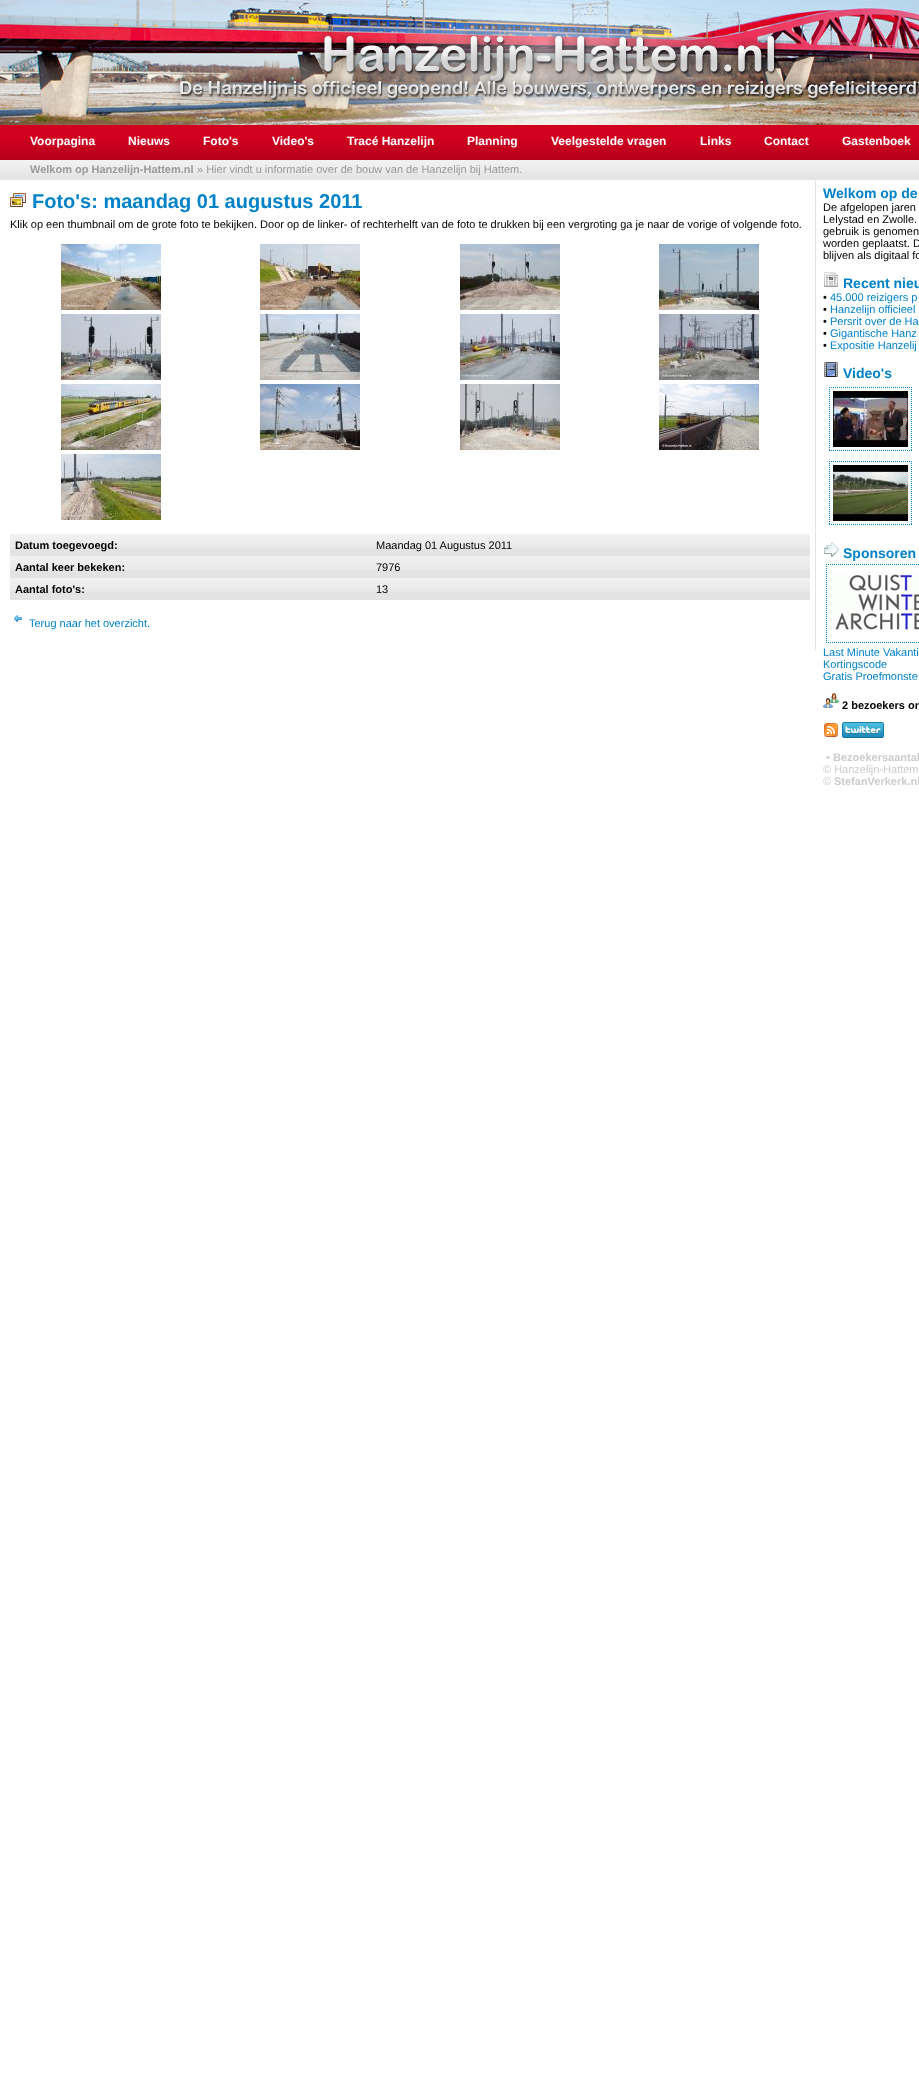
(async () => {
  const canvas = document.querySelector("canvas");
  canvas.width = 919;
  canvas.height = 2080;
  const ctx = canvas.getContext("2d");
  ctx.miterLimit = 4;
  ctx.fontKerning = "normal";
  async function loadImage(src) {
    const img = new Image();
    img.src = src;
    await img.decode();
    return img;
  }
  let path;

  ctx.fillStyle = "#ffffff";
  ctx.fillRect(0, 0, 919, 2080);
  ctx.drawImage(await loadImage("img/1.png"), 0, 0, 919, 125);
  ctx.fillStyle = "#d1001f";
  ctx.fillRect(0, 125, 919, 14);
  ctx.drawImage(await loadImage("img/2.png"), 0, 139, 919, 21);
  ctx.drawImage(await loadImage("img/3.png"), 0, 160, 919, 20);
  ctx.fillStyle = "#e3e3e3";
  ctx.fillRect(815, 180, 1, 470);
  ctx.drawImage(await loadImage("img/4.png"), 10, 193, 16, 14);
  ctx.drawImage(await loadImage("img/5.png"), 61, 244, 100, 66);
  ctx.drawImage(await loadImage("img/6.png"), 260, 244, 100, 66);
  ctx.drawImage(await loadImage("img/7.png"), 460, 244, 100, 66);
  ctx.drawImage(await loadImage("img/8.png"), 659, 244, 100, 66);
  ctx.drawImage(await loadImage("img/9.png"), 61, 314, 100, 66);
  ctx.drawImage(await loadImage("img/10.png"), 260, 314, 100, 66);
  ctx.drawImage(await loadImage("img/11.png"), 460, 314, 100, 66);
  ctx.drawImage(await loadImage("img/12.png"), 659, 314, 100, 66);
  ctx.drawImage(await loadImage("img/13.png"), 61, 384, 100, 66);
  ctx.drawImage(await loadImage("img/14.png"), 260, 384, 100, 66);
  ctx.drawImage(await loadImage("img/15.png"), 460, 384, 100, 66);
  ctx.drawImage(await loadImage("img/16.png"), 659, 384, 100, 66);
  ctx.drawImage(await loadImage("img/17.png"), 61, 454, 100, 66);
  ctx.fillRect(10, 548, 800, 8);
  ctx.drawImage(await loadImage("img/18.png"), 10, 534, 361, 14);
  ctx.drawImage(await loadImage("img/19.png"), 371, 534, 439, 14);
  ctx.fillRect(10, 570, 800, 8);
  ctx.drawImage(await loadImage("img/18.png"), 10, 556, 361, 14);
  ctx.drawImage(await loadImage("img/19.png"), 371, 556, 439, 14);
  ctx.fillRect(10, 592, 800, 8);
  ctx.drawImage(await loadImage("img/18.png"), 10, 578, 361, 14);
  ctx.drawImage(await loadImage("img/19.png"), 371, 578, 439, 14);
  ctx.drawImage(await loadImage("img/20.png"), 14, 615, 8, 7);
  ctx.drawImage(await loadImage("img/21.png"), 824, 272, 14, 15);
  ctx.drawImage(await loadImage("img/22.png"), 824, 362, 14, 15);
  path = new Path2D("M829 387.5H912");
  ctx.strokeStyle = "#0082c9";
  ctx.setLineDash([1, 1]);
  ctx.stroke(path);
  path = new Path2D("M829.5 387V451");
  ctx.stroke(path);
  ctx.drawImage(await loadImage("img/23.png"), 833, 391, 75, 56);
  path = new Path2D("M911.5 387V451");
  ctx.stroke(path);
  path = new Path2D("M829 450.5H912");
  ctx.stroke(path);
  path = new Path2D("M829 461.5H912");
  ctx.stroke(path);
  path = new Path2D("M829.5 461V525");
  ctx.stroke(path);
  ctx.drawImage(await loadImage("img/24.png"), 833, 465, 75, 56);
  path = new Path2D("M911.5 461V525");
  ctx.stroke(path);
  path = new Path2D("M829 524.5H912");
  ctx.stroke(path);
  ctx.drawImage(await loadImage("img/25.png"), 824, 542, 15, 15);
  path = new Path2D("M826 564.5H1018");
  ctx.stroke(path);
  path = new Path2D("M826 642.5H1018");
  ctx.stroke(path);
  path = new Path2D("M826.5 564V643");
  ctx.stroke(path);
  ctx.drawImage(await loadImage("img/26.png"), 830, 568, 89, 64);
  ctx.drawImage(await loadImage("img/27.png"), 823, 693, 16, 15);
  ctx.drawImage(await loadImage("img/28.png"), 824, 723, 14, 14);
  ctx.drawImage(await loadImage("img/29.png"), 842, 722, 42, 16);
  ctx.font = "bold 12px Liberation Sans";
  ctx.fillStyle = "#ffffff";
  for (const [text, x, y] of [
    ["Voorpagina", 30, 145],
    ["Nieuws", 128, 145],
    ["Foto's", 203, 145],
    ["Video's", 272, 145],
    ["Tracé Hanzelijn", 347, 145],
    ["Planning", 467, 145],
    ["Veelgestelde vragen", 551, 145],
    ["Links", 700, 145],
    ["Contact", 764, 145],
    ["Gastenboek", 842, 145],
  ]) {
    ctx.fillText(text, x, y);
  }
  ctx.font = "bold 11px Liberation Sans";
  ctx.fillStyle = "#999999";
  ctx.fillText("Welkom op Hanzelijn-Hattem.nl", 30, 173);
  ctx.font = "11px Liberation Sans";
  ctx.fillText("» Hier vindt u informatie over de bouw van de Hanzelijn bij Hattem.", 197, 173);
  ctx.font = "bold 20px Liberation Sans";
  ctx.fillStyle = "#0082c9";
  ctx.fillText("Foto's: maandag 01 augustus 2011", 32, 208);
  ctx.font = "11px Liberation Sans";
  ctx.fillStyle = "#000000";
  ctx.fillText("Klik op een thumbnail om de grote foto te bekijken. Door op de linker- of rechterhelft van de foto te drukken bij een vergroting ga je naar de vorige of volgende foto.", 10, 228);
  ctx.font = "bold 11px Liberation Sans";
  ctx.fillText("Datum toegevoegd:", 15, 549);
  ctx.font = "11px Liberation Sans";
  ctx.fillText("Maandag 01 Augustus 2011", 376, 549);
  ctx.font = "bold 11px Liberation Sans";
  ctx.fillText("Aantal keer bekeken:", 15, 571);
  ctx.font = "11px Liberation Sans";
  ctx.fillText("7976", 376, 571);
  ctx.font = "bold 11px Liberation Sans";
  ctx.fillText("Aantal foto's:", 15, 593);
  ctx.font = "11px Liberation Sans";
  ctx.fillText("13", 376, 593);
  ctx.fillStyle = "#0082c9";
  ctx.fillText("Terug naar het overzicht.", 29, 627);
  ctx.font = "bold 14px Liberation Sans";
  ctx.fillText("Welkom op de", 823, 198);
  ctx.font = "11px Liberation Sans";
  ctx.fillStyle = "#000000";
  for (const [text, x, y] of [
    ["De afgelopen jaren", 823, 211],
    ["Lelystad en Zwolle.", 823, 223],
    ["gebruik is genomen", 823, 235],
    ["worden geplaatst. D", 823, 247],
    ["blijven als digitaal fo", 823, 259],
  ]) {
    ctx.fillText(text, x, y);
  }
  ctx.font = "bold 14px Liberation Sans";
  ctx.fillStyle = "#0082c9";
  ctx.fillText("Recent nieu", 843, 288);
  ctx.font = "11px Liberation Sans";
  ctx.fillStyle = "#000000";
  ctx.fillText("•", 823, 301);
  ctx.fillStyle = "#0082c9";
  ctx.fillText("45.000 reizigers p", 830, 301);
  ctx.fillStyle = "#000000";
  ctx.fillText("•", 823, 313);
  ctx.fillStyle = "#0082c9";
  ctx.fillText("Hanzelijn officieel", 830, 313);
  ctx.fillStyle = "#000000";
  ctx.fillText("•", 823, 325);
  ctx.fillStyle = "#0082c9";
  ctx.fillText("Persrit over de Ha", 830, 325);
  ctx.fillStyle = "#000000";
  ctx.fillText("•", 823, 337);
  ctx.fillStyle = "#0082c9";
  ctx.fillText("Gigantische Hanz", 830, 337);
  ctx.fillStyle = "#000000";
  ctx.fillText("•", 823, 349);
  ctx.fillStyle = "#0082c9";
  ctx.fillText("Expositie Hanzelij", 830, 349);
  ctx.font = "bold 14px Liberation Sans";
  ctx.fillText("Video's", 843, 378);
  ctx.fillText("Sponsoren", 843, 558);
  ctx.font = "11px Liberation Sans";
  for (const [text, x, y] of [
    ["Last Minute Vakanti", 823, 656],
    ["Kortingscode", 823, 668],
    ["Gratis Proefmonste", 823, 680],
  ]) {
    ctx.fillText(text, x, y);
  }
  ctx.font = "bold 11px Liberation Sans";
  ctx.fillStyle = "#000000";
  ctx.fillText("2 bezoekers on", 842, 709);
  ctx.font = "11px Liberation Sans";
  ctx.fillStyle = "#cccccc";
  ctx.fillText("•", 826, 761);
  ctx.font = "bold 11px Liberation Sans";
  ctx.fillText("Bezoekersaantal", 833, 761);
  ctx.font = "11px Liberation Sans";
  ctx.fillText("© Hanzelijn-Hattem", 823, 773);
  ctx.fillText("©", 823, 785);
  ctx.font = "bold 11px Liberation Sans";
  ctx.fillText("StefanVerkerk.nl", 834, 785);
})();
